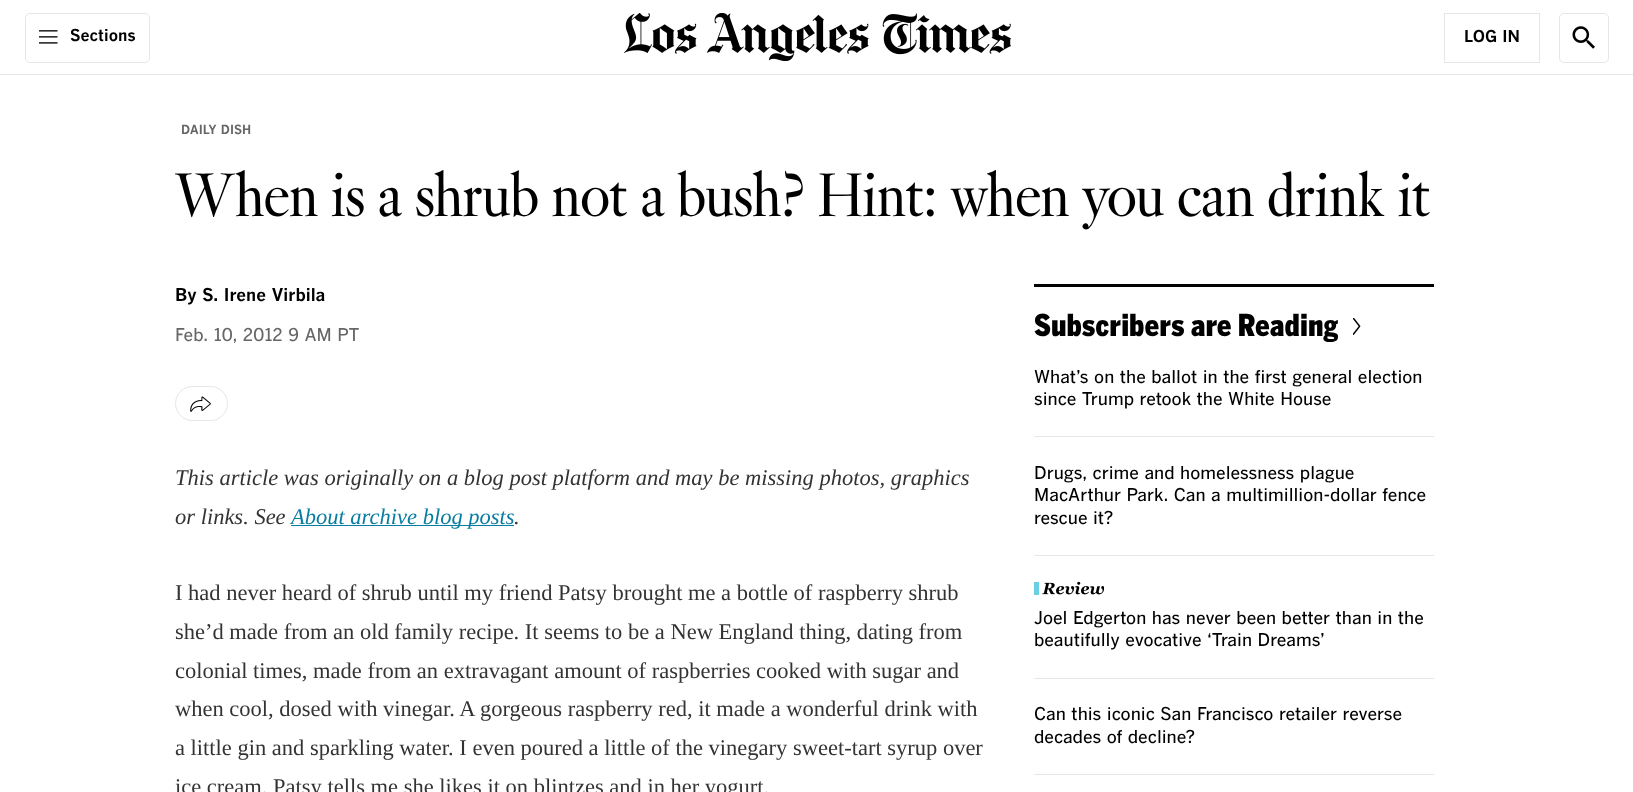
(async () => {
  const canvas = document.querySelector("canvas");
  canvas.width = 1633;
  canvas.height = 792;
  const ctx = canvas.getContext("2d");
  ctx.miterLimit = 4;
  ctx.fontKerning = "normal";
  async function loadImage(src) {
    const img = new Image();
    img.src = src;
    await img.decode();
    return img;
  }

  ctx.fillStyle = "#ffffff";
  ctx.fillRect(0, 0, 1633, 792);
  ctx.fillStyle = "#e6e6e6";
  ctx.fillRect(0, 74, 1633, 1);
  ctx.beginPath();
  ctx.roundRect(25.5, 13.5, 124, 49, 4.5);
  ctx.strokeStyle = "#e6e6e6";
  ctx.stroke();
  ctx.drawImage(await loadImage("img/1.png"), 39, 30, 19, 14);
  ctx.drawImage(await loadImage("img/2.png"), 624, 13, 387, 48);
  ctx.strokeRect(1444.5, 13.5, 95, 49);
  ctx.beginPath();
  ctx.roundRect(1559.5, 13.5, 49, 49, 4.5);
  ctx.stroke();
  ctx.drawImage(await loadImage("img/3.png"), 1572, 26, 23, 23);
  ctx.beginPath();
  ctx.roundRect(175.5, 386.5, 52, 34, 17);
  ctx.stroke();
  ctx.drawImage(await loadImage("img/4.png"), 190, 396, 21, 16);
  ctx.fillStyle = "#087da1";
  ctx.fillRect(291, 525, 223, 1);
  ctx.fillStyle = "#000000";
  ctx.fillRect(1034, 284, 400, 3);
  ctx.drawImage(await loadImage("img/5.png"), 1353, 318, 8, 17);
  for (const [x, y, w, h, color] of [
    [1034, 436, 400, 1, "#e6e6e6"],
    [1034, 555, 400, 1, "#e6e6e6"],
    [1034, 678, 400, 1, "#e6e6e6"],
  ]) {
    ctx.fillStyle = color;
    ctx.fillRect(x, y, w, h);
  }
  ctx.drawImage(await loadImage("img/6.png"), 1034, 581, 70, 14);
  ctx.fillRect(1034, 774, 400, 1);
  ctx.font = "bold 16.25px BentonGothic";
  ctx.fillStyle = "#000000";
  ctx.fillText("Sections", 70, 41);
  ctx.fillText("LOG IN", 1464, 42);
  ctx.font = "bold 12.5px BentonGothic";
  ctx.fillStyle = "#666666";
  ctx.fillText("DAILY DISH", 181, 134);
  ctx.letterSpacing = "-0.25px";
  ctx.font = "62.5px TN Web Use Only";
  ctx.fillStyle = "#000000";
  ctx.fillText("When is a shrub not a bush? Hint: when you can drink it", 175, 216);
  ctx.letterSpacing = "0px";
  ctx.font = "bold 17.5px BentonGothic";
  ctx.fillText("By S. Irene Virbila", 175, 301);
  ctx.font = "500 17.5px BentonGothic";
  ctx.fillStyle = "#666666";
  ctx.fillText("Feb. 10, 2012 9 AM PT", 175, 341);
  ctx.font = "italic 22.5px Liberation Serif";
  ctx.fillStyle = "#333333";
  ctx.fillText("This article was originally on a blog post platform and may be missing photos, graphics", 175, 485);
  ctx.fillText("or links. See", 175, 524);
  ctx.fillStyle = "#087da1";
  ctx.fillText("About archive blog posts", 291, 524);
  ctx.fillStyle = "#333333";
  ctx.fillText(".", 514, 524);
  ctx.font = "22.5px Liberation Serif";
  for (const [text, x, y] of [
    ["I had never heard of shrub until my friend Patsy brought me a bottle of raspberry shrub", 175, 600],
    ["she’d made from an old family recipe. It seems to be a New England thing, dating from", 175, 639],
    ["colonial times, made from an extravagant amount of raspberries cooked with sugar and", 175, 678],
    ["when cool, dosed with vinegar. A gorgeous raspberry red, it made a wonderful drink with", 175, 716],
    ["a little gin and sparkling water. I even poured a little of the vinegary sweet-tart syrup over", 175, 755],
    ["ice cream. Patsy tells me she likes it on blintzes and in her yogurt.", 175, 794],
  ]) {
    ctx.fillText(text, x, y);
  }
  ctx.font = "30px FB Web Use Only";
  ctx.fillStyle = "#000000";
  ctx.fillText("Subscribers are Reading", 1034, 336);
  ctx.font = "500 17.5px BentonGothic";
  for (const [text, x, y] of [
    ["What’s on the ballot in the first general election", 1034, 383],
    ["since Trump retook the White House", 1034, 405],
    ["Drugs, crime and homelessness plague", 1034, 479],
    ["MacArthur Park. Can a multimillion-dollar fence", 1034, 501],
    ["rescue it?", 1034, 524],
    ["Joel Edgerton has never been better than in the", 1034, 624],
    ["beautifully evocative ‘Train Dreams’", 1034, 646],
    ["Can this iconic San Francisco retailer reverse", 1034, 720],
    ["decades of decline?", 1034, 743],
  ]) {
    ctx.fillText(text, x, y);
  }
})();
